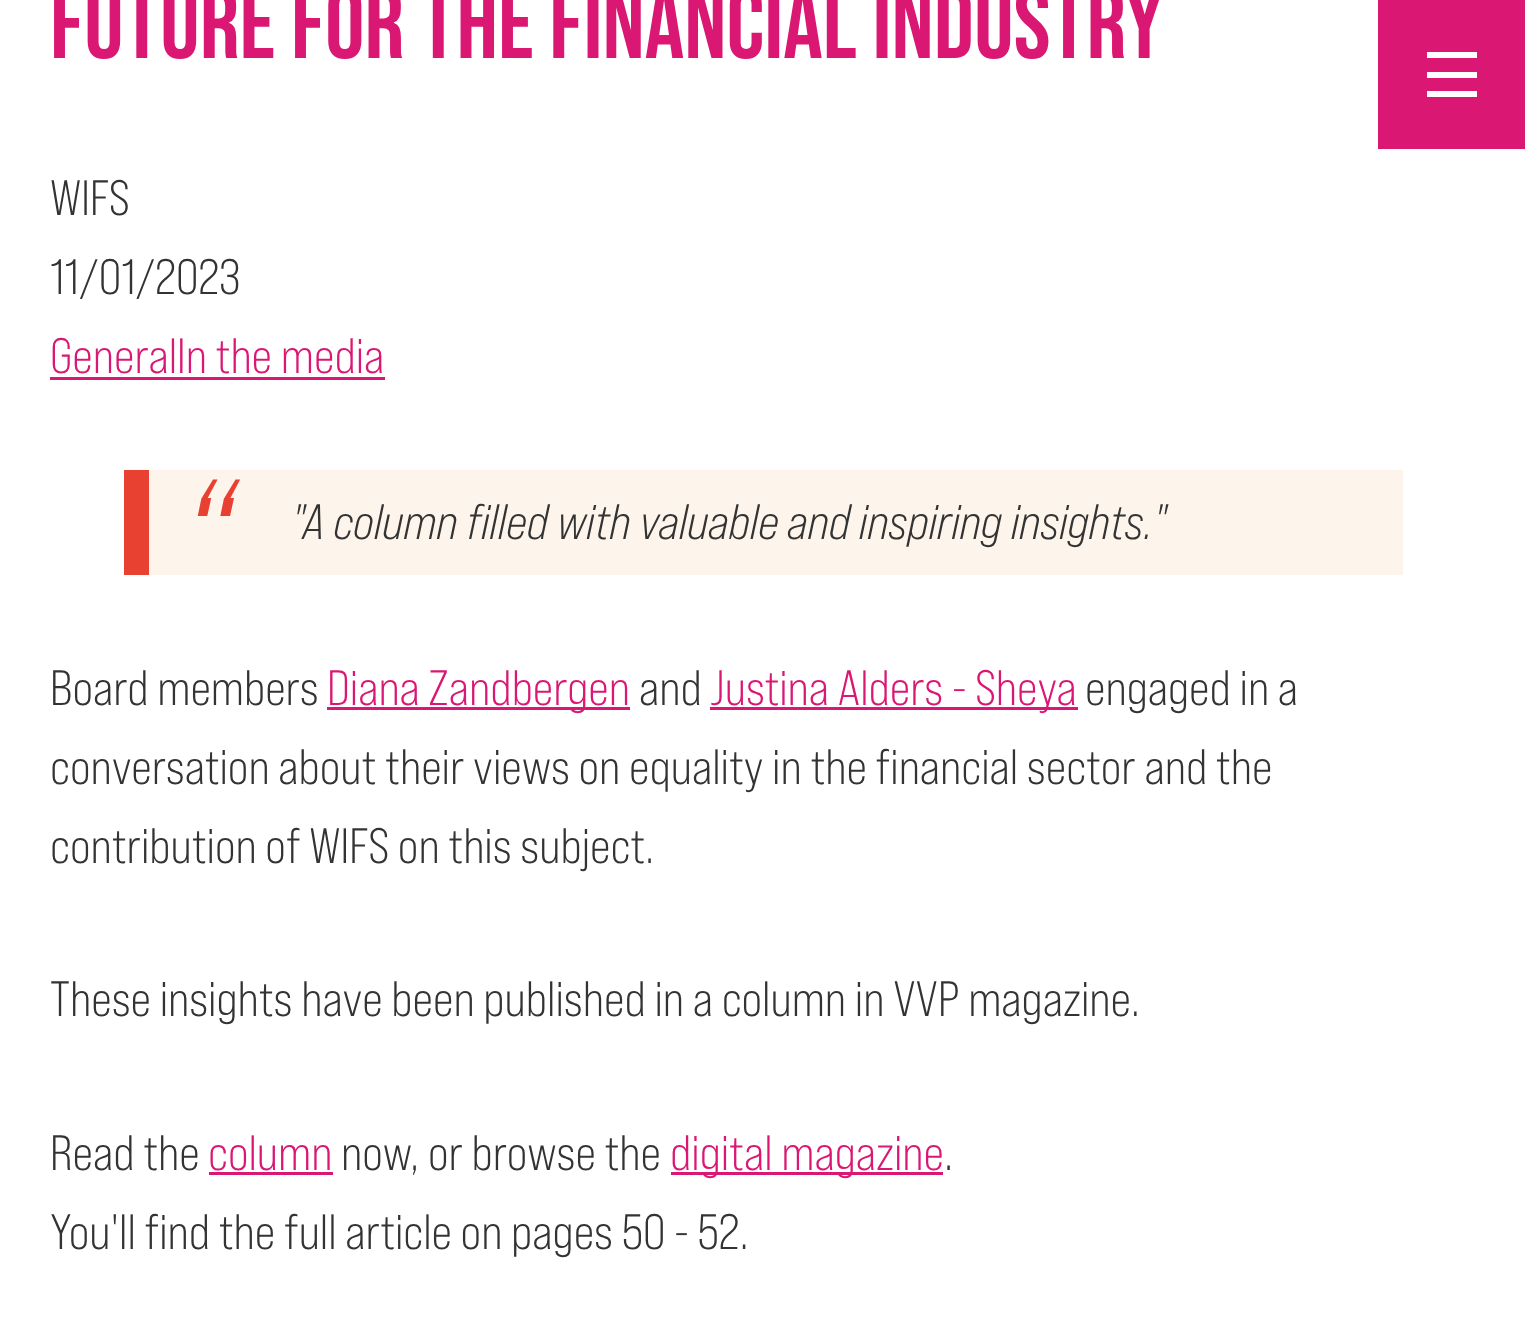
(async () => {
  const canvas = document.querySelector("canvas");
  canvas.width = 1525;
  canvas.height = 1334;
  const ctx = canvas.getContext("2d");
  ctx.miterLimit = 4;
  ctx.fontKerning = "normal";

  ctx.fillStyle = "#ffffff";
  ctx.fillRect(0, 0, 1525, 1334);
  for (const [x, y, w, h, color] of [
    [50, 377, 335, 3, "#da1873"],
    [149, 470, 1254, 105, "#fdf4eb"],
    [124, 470, 25, 105, "#e84031"],
    [327, 707, 303, 3, "#da1873"],
    [710, 707, 368, 3, "#da1873"],
    [209, 1172, 124, 3, "#da1873"],
    [671, 1172, 272, 3, "#da1873"],
    [1378, 0, 147, 149, "#da1873"],
    [1427, 72, 50, 6, "#ffffff"],
    [1427, 52, 50, 6, "#ffffff"],
    [1427, 91, 50, 6, "#ffffff"],
  ]) {
    ctx.fillStyle = color;
    ctx.fillRect(x, y, w, h);
  }
  ctx.font = "bold 99px Bebas Neue";
  ctx.fillStyle = "#da1873";
  ctx.fillText("FUTURE FOR THE FINANCIAL INDUSTRY", 50, 58);
  ctx.font = "49.5px Bebas Neue";
  ctx.fillStyle = "#333333";
  ctx.fillText("WIFS", 50, 215);
  ctx.fillText("11/01/2023", 50, 294);
  ctx.fillStyle = "#da1873";
  ctx.fillText("GeneralIn the media", 50, 373);
  ctx.font = "italic 198px Bebas Neue";
  ctx.fillStyle = "#e84031";
  ctx.fillText("“", 173, 618);
  ctx.font = "italic 49.5px Bebas Neue";
  ctx.fillStyle = "#333333";
  ctx.fillText("\"A column filled with valuable and inspiring insights.\"", 291, 539);
  ctx.font = "49.5px Bebas Neue";
  ctx.fillText("Board members", 50, 705);
  ctx.fillStyle = "#da1873";
  ctx.fillText("Diana Zandbergen", 327, 705);
  ctx.fillStyle = "#333333";
  ctx.fillText("and", 639, 705);
  ctx.fillStyle = "#da1873";
  ctx.fillText("Justina Alders - Sheya", 710, 705);
  ctx.fillStyle = "#333333";
  for (const [text, x, y] of [
    ["engaged in a", 1085, 705],
    ["conversation about their views on equality in the financial sector and the", 50, 784],
    ["contribution of WIFS on this subject.", 50, 863],
    ["These insights have been published in a column in VVP magazine.", 50, 1016],
    ["Read the", 50, 1170],
  ]) {
    ctx.fillText(text, x, y);
  }
  ctx.fillStyle = "#da1873";
  ctx.fillText("column", 208, 1170);
  ctx.fillStyle = "#333333";
  ctx.fillText("now, or browse the", 341, 1170);
  ctx.fillStyle = "#da1873";
  ctx.fillText("digital magazine", 670, 1170);
  ctx.fillStyle = "#333333";
  ctx.fillText(".", 944, 1170);
  ctx.fillText("You'll find the full article on pages 50 - 52.", 50, 1249);
})();
